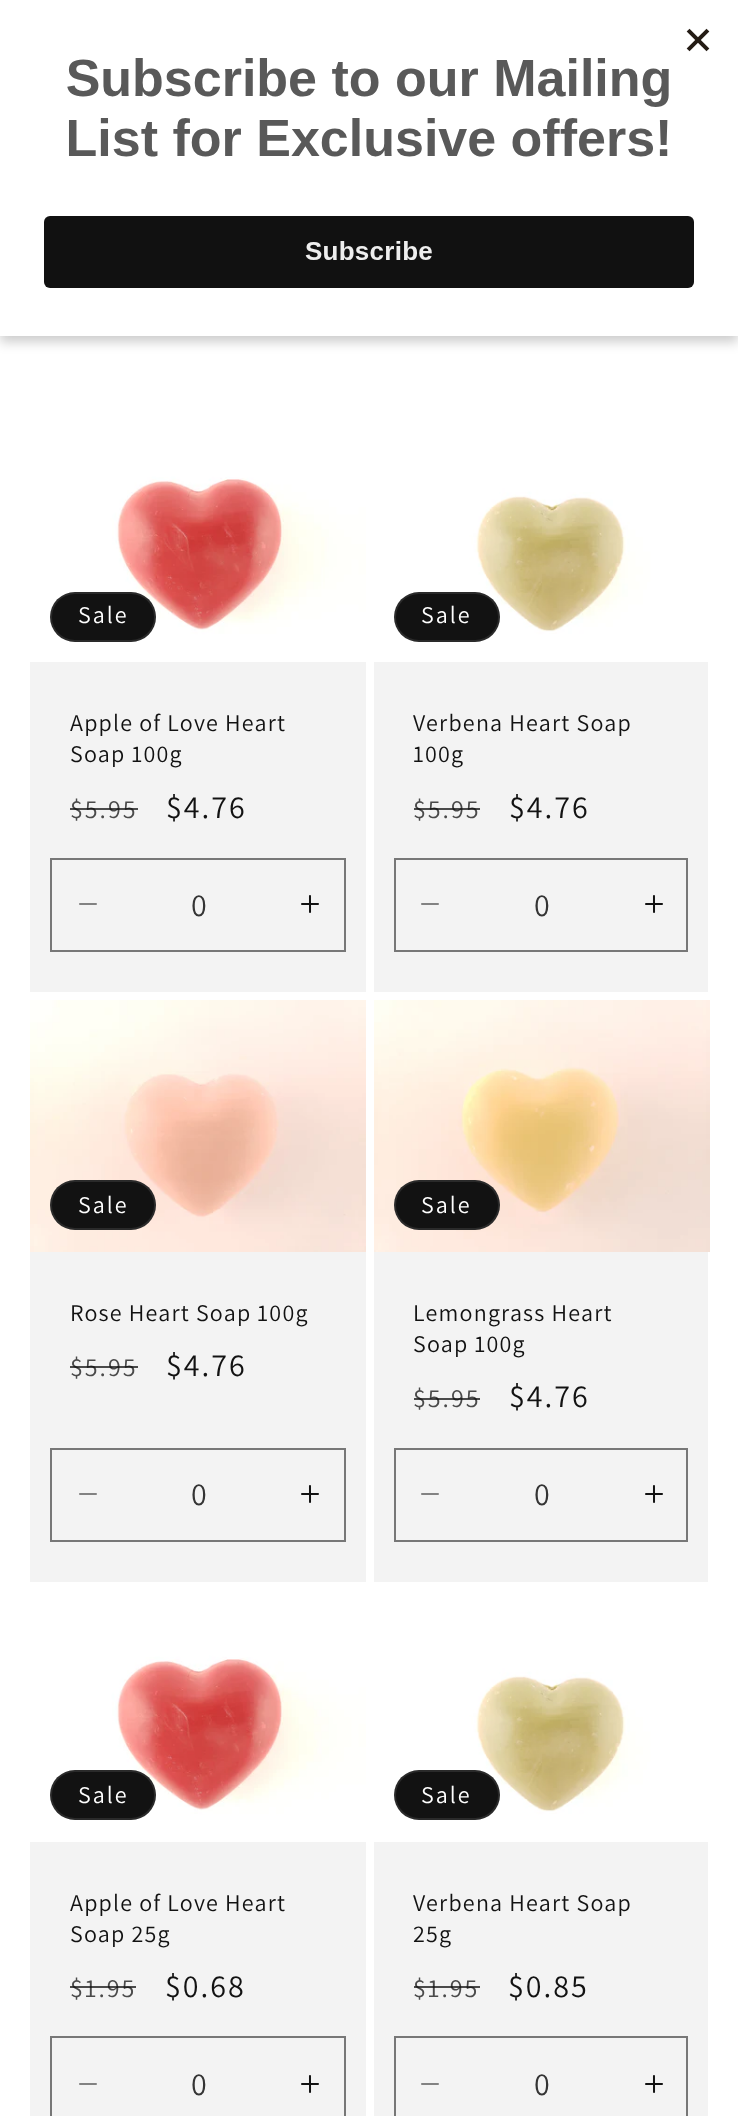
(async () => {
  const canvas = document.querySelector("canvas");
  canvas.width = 738;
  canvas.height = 2116;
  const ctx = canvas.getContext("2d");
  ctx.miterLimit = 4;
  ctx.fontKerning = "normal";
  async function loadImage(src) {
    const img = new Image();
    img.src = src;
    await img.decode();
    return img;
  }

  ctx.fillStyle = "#ffffff";
  ctx.fillRect(0, 0, 738, 2116);
  ctx.fillStyle = "rgba(0, 0, 0, 0.2)";
  ctx.filter = "blur(6px)";
  ctx.beginPath();
  ctx.rect(0, 6, 738, 336);
  ctx.fill();
  ctx.filter = "none";
  ctx.fillStyle = "#ffffff";
  ctx.fillRect(0, 0, 738, 336);
  ctx.drawImage(await loadImage("img/1.png"), 44, 28, 666, 260);
  ctx.fillStyle = "#f3f3f3";
  ctx.fillRect(30, 662, 336, 330);
  ctx.drawImage(await loadImage("img/2.png"), 30, 410, 336, 252);
  ctx.fillStyle = "#121212";
  ctx.beginPath();
  ctx.roundRect(50, 592, 106, 50, 25);
  ctx.fill();
  ctx.beginPath();
  ctx.roundRect(51, 593, 104, 48, 24);
  ctx.strokeStyle = "rgba(255, 255, 255, 0.1)";
  ctx.lineWidth = 2;
  ctx.stroke();
  ctx.drawImage(await loadImage("img/3.png"), 79, 903, 18, 2);
  ctx.drawImage(await loadImage("img/4.png"), 301, 895, 18, 18);
  ctx.strokeStyle = "#777777";
  ctx.strokeRect(51, 859, 294, 92);
  ctx.fillStyle = "#f3f3f3";
  ctx.fillRect(374, 662, 334, 330);
  ctx.drawImage(await loadImage("img/5.png"), 374, 410, 334, 252);
  ctx.fillStyle = "#121212";
  ctx.beginPath();
  ctx.roundRect(394, 592, 106, 50, 25);
  ctx.fill();
  ctx.beginPath();
  ctx.roundRect(395, 593, 104, 48, 24);
  ctx.strokeStyle = "rgba(255, 255, 255, 0.1)";
  ctx.stroke();
  ctx.drawImage(await loadImage("img/3.png"), 421, 903, 18, 2);
  ctx.drawImage(await loadImage("img/4.png"), 645, 895, 18, 18);
  ctx.strokeStyle = "#777777";
  ctx.strokeRect(395, 859, 292, 92);
  ctx.fillStyle = "#f3f3f3";
  ctx.fillRect(30, 1252, 336, 330);
  ctx.drawImage(await loadImage("img/6.png"), 30, 1000, 336, 252);
  ctx.fillStyle = "#121212";
  ctx.beginPath();
  ctx.roundRect(50, 1180, 106, 50, 25);
  ctx.fill();
  ctx.beginPath();
  ctx.roundRect(51, 1181, 104, 48, 24);
  ctx.strokeStyle = "rgba(255, 255, 255, 0.1)";
  ctx.stroke();
  ctx.drawImage(await loadImage("img/3.png"), 79, 1493, 18, 2);
  ctx.drawImage(await loadImage("img/4.png"), 301, 1485, 18, 18);
  ctx.strokeStyle = "#777777";
  ctx.strokeRect(51, 1449, 294, 92);
  ctx.fillStyle = "#f3f3f3";
  ctx.fillRect(374, 1252, 334, 330);
  ctx.drawImage(await loadImage("img/7.png"), 374, 1000, 336, 252);
  ctx.fillStyle = "#121212";
  ctx.beginPath();
  ctx.roundRect(394, 1180, 106, 50, 25);
  ctx.fill();
  ctx.beginPath();
  ctx.roundRect(395, 1181, 104, 48, 24);
  ctx.strokeStyle = "rgba(255, 255, 255, 0.1)";
  ctx.stroke();
  ctx.drawImage(await loadImage("img/3.png"), 421, 1493, 18, 2);
  ctx.drawImage(await loadImage("img/4.png"), 645, 1485, 18, 18);
  ctx.strokeStyle = "#777777";
  ctx.strokeRect(395, 1449, 292, 92);
  ctx.fillStyle = "#f3f3f3";
  ctx.fillRect(30, 1842, 336, 274);
  ctx.drawImage(await loadImage("img/8.png"), 30, 1590, 336, 252);
  ctx.fillStyle = "#121212";
  ctx.beginPath();
  ctx.roundRect(50, 1770, 106, 50, 25);
  ctx.fill();
  ctx.beginPath();
  ctx.roundRect(51, 1771, 104, 48, 24);
  ctx.strokeStyle = "rgba(255, 255, 255, 0.1)";
  ctx.stroke();
  ctx.drawImage(await loadImage("img/3.png"), 79, 2083, 18, 2);
  ctx.drawImage(await loadImage("img/4.png"), 301, 2075, 18, 18);
  ctx.strokeStyle = "#777777";
  ctx.strokeRect(51, 2037, 294, 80);
  ctx.fillStyle = "#f3f3f3";
  ctx.fillRect(374, 1842, 334, 274);
  ctx.drawImage(await loadImage("img/9.png"), 374, 1590, 334, 252);
  ctx.fillStyle = "#121212";
  ctx.beginPath();
  ctx.roundRect(394, 1770, 106, 50, 25);
  ctx.fill();
  ctx.beginPath();
  ctx.roundRect(395, 1771, 104, 48, 24);
  ctx.strokeStyle = "rgba(255, 255, 255, 0.1)";
  ctx.stroke();
  ctx.drawImage(await loadImage("img/3.png"), 421, 2083, 18, 2);
  ctx.drawImage(await loadImage("img/4.png"), 645, 2075, 18, 18);
  ctx.strokeStyle = "#777777";
  ctx.strokeRect(395, 2037, 292, 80);
  ctx.letterSpacing = "2px";
  ctx.font = "24px Assistant";
  ctx.fillStyle = "#ffffff";
  ctx.fillText("Sale", 78, 623);
  ctx.letterSpacing = "1.2px";
  ctx.fillStyle = "#121212";
  ctx.fillText("Apple of Love Heart", 70, 731);
  ctx.fillText("Soap 100g", 70, 762);
  ctx.letterSpacing = "2px";
  ctx.font = "26px Assistant";
  ctx.fillStyle = "#4a4a4a";
  ctx.fillText("$5.95", 70, 818);
  ctx.fillStyle = "rgba(18, 18, 18, 0.75)";
  ctx.fillRect(70, 808, 68, 2);
  ctx.font = "32px Assistant";
  ctx.fillStyle = "#121212";
  ctx.fillText("$4.76", 166, 818);
  ctx.letterSpacing = "0px";
  ctx.fillStyle = "#343434";
  ctx.fillText("0", 191, 916);
  ctx.letterSpacing = "2px";
  ctx.font = "24px Assistant";
  ctx.fillStyle = "#ffffff";
  ctx.fillText("Sale", 421, 623);
  ctx.letterSpacing = "1.2px";
  ctx.fillStyle = "#121212";
  ctx.fillText("Verbena Heart Soap", 413, 731);
  ctx.fillText("100g", 413, 762);
  ctx.letterSpacing = "2px";
  ctx.font = "26px Assistant";
  ctx.fillStyle = "#4a4a4a";
  ctx.fillText("$5.95", 413, 818);
  ctx.fillStyle = "rgba(18, 18, 18, 0.75)";
  ctx.fillRect(414, 808, 66, 2);
  ctx.font = "32px Assistant";
  ctx.fillStyle = "#121212";
  ctx.fillText("$4.76", 509, 818);
  ctx.letterSpacing = "0px";
  ctx.fillStyle = "#343434";
  ctx.fillText("0", 534, 916);
  ctx.letterSpacing = "2px";
  ctx.font = "24px Assistant";
  ctx.fillStyle = "#ffffff";
  ctx.fillText("Sale", 78, 1213);
  ctx.letterSpacing = "1.2px";
  ctx.fillStyle = "#121212";
  ctx.fillText("Rose Heart Soap 100g", 70, 1321);
  ctx.letterSpacing = "2px";
  ctx.font = "26px Assistant";
  ctx.fillStyle = "#4a4a4a";
  ctx.fillText("$5.95", 70, 1376);
  ctx.fillStyle = "rgba(18, 18, 18, 0.75)";
  ctx.fillRect(70, 1366, 68, 2);
  ctx.font = "32px Assistant";
  ctx.fillStyle = "#121212";
  ctx.fillText("$4.76", 166, 1376);
  ctx.letterSpacing = "0px";
  ctx.fillStyle = "#343434";
  ctx.fillText("0", 191, 1505);
  ctx.letterSpacing = "2px";
  ctx.font = "24px Assistant";
  ctx.fillStyle = "#ffffff";
  ctx.fillText("Sale", 421, 1213);
  ctx.letterSpacing = "1.2px";
  ctx.fillStyle = "#121212";
  ctx.fillText("Lemongrass Heart", 413, 1321);
  ctx.fillText("Soap 100g", 413, 1352);
  ctx.letterSpacing = "2px";
  ctx.font = "26px Assistant";
  ctx.fillStyle = "#4a4a4a";
  ctx.fillText("$5.95", 413, 1407);
  ctx.fillStyle = "rgba(18, 18, 18, 0.75)";
  ctx.fillRect(414, 1398, 66, 2);
  ctx.font = "32px Assistant";
  ctx.fillStyle = "#121212";
  ctx.fillText("$4.76", 509, 1407);
  ctx.letterSpacing = "0px";
  ctx.fillStyle = "#343434";
  ctx.fillText("0", 534, 1505);
  ctx.letterSpacing = "2px";
  ctx.font = "24px Assistant";
  ctx.fillStyle = "#ffffff";
  ctx.fillText("Sale", 78, 1803);
  ctx.letterSpacing = "1.2px";
  ctx.fillStyle = "#121212";
  ctx.fillText("Apple of Love Heart", 70, 1911);
  ctx.fillText("Soap 25g", 70, 1942);
  ctx.letterSpacing = "2px";
  ctx.font = "26px Assistant";
  ctx.fillStyle = "#4a4a4a";
  ctx.fillText("$1.95", 70, 1997);
  ctx.fillStyle = "rgba(18, 18, 18, 0.75)";
  ctx.fillRect(70, 1986, 66, 2);
  ctx.font = "32px Assistant";
  ctx.fillStyle = "#121212";
  ctx.fillText("$0.68", 165, 1997);
  ctx.letterSpacing = "0px";
  ctx.fillStyle = "#343434";
  ctx.fillText("0", 191, 2095);
  ctx.letterSpacing = "2px";
  ctx.font = "24px Assistant";
  ctx.fillStyle = "#ffffff";
  ctx.fillText("Sale", 421, 1803);
  ctx.letterSpacing = "1.2px";
  ctx.fillStyle = "#121212";
  ctx.fillText("Verbena Heart Soap", 413, 1911);
  ctx.fillText("25g", 413, 1942);
  ctx.letterSpacing = "2px";
  ctx.font = "26px Assistant";
  ctx.fillStyle = "#4a4a4a";
  ctx.fillText("$1.95", 413, 1997);
  ctx.fillStyle = "rgba(18, 18, 18, 0.75)";
  ctx.fillRect(414, 1986, 66, 2);
  ctx.font = "32px Assistant";
  ctx.fillStyle = "#121212";
  ctx.fillText("$0.85", 508, 1997);
  ctx.letterSpacing = "0px";
  ctx.fillStyle = "#343434";
  ctx.fillText("0", 534, 2095);
})();
